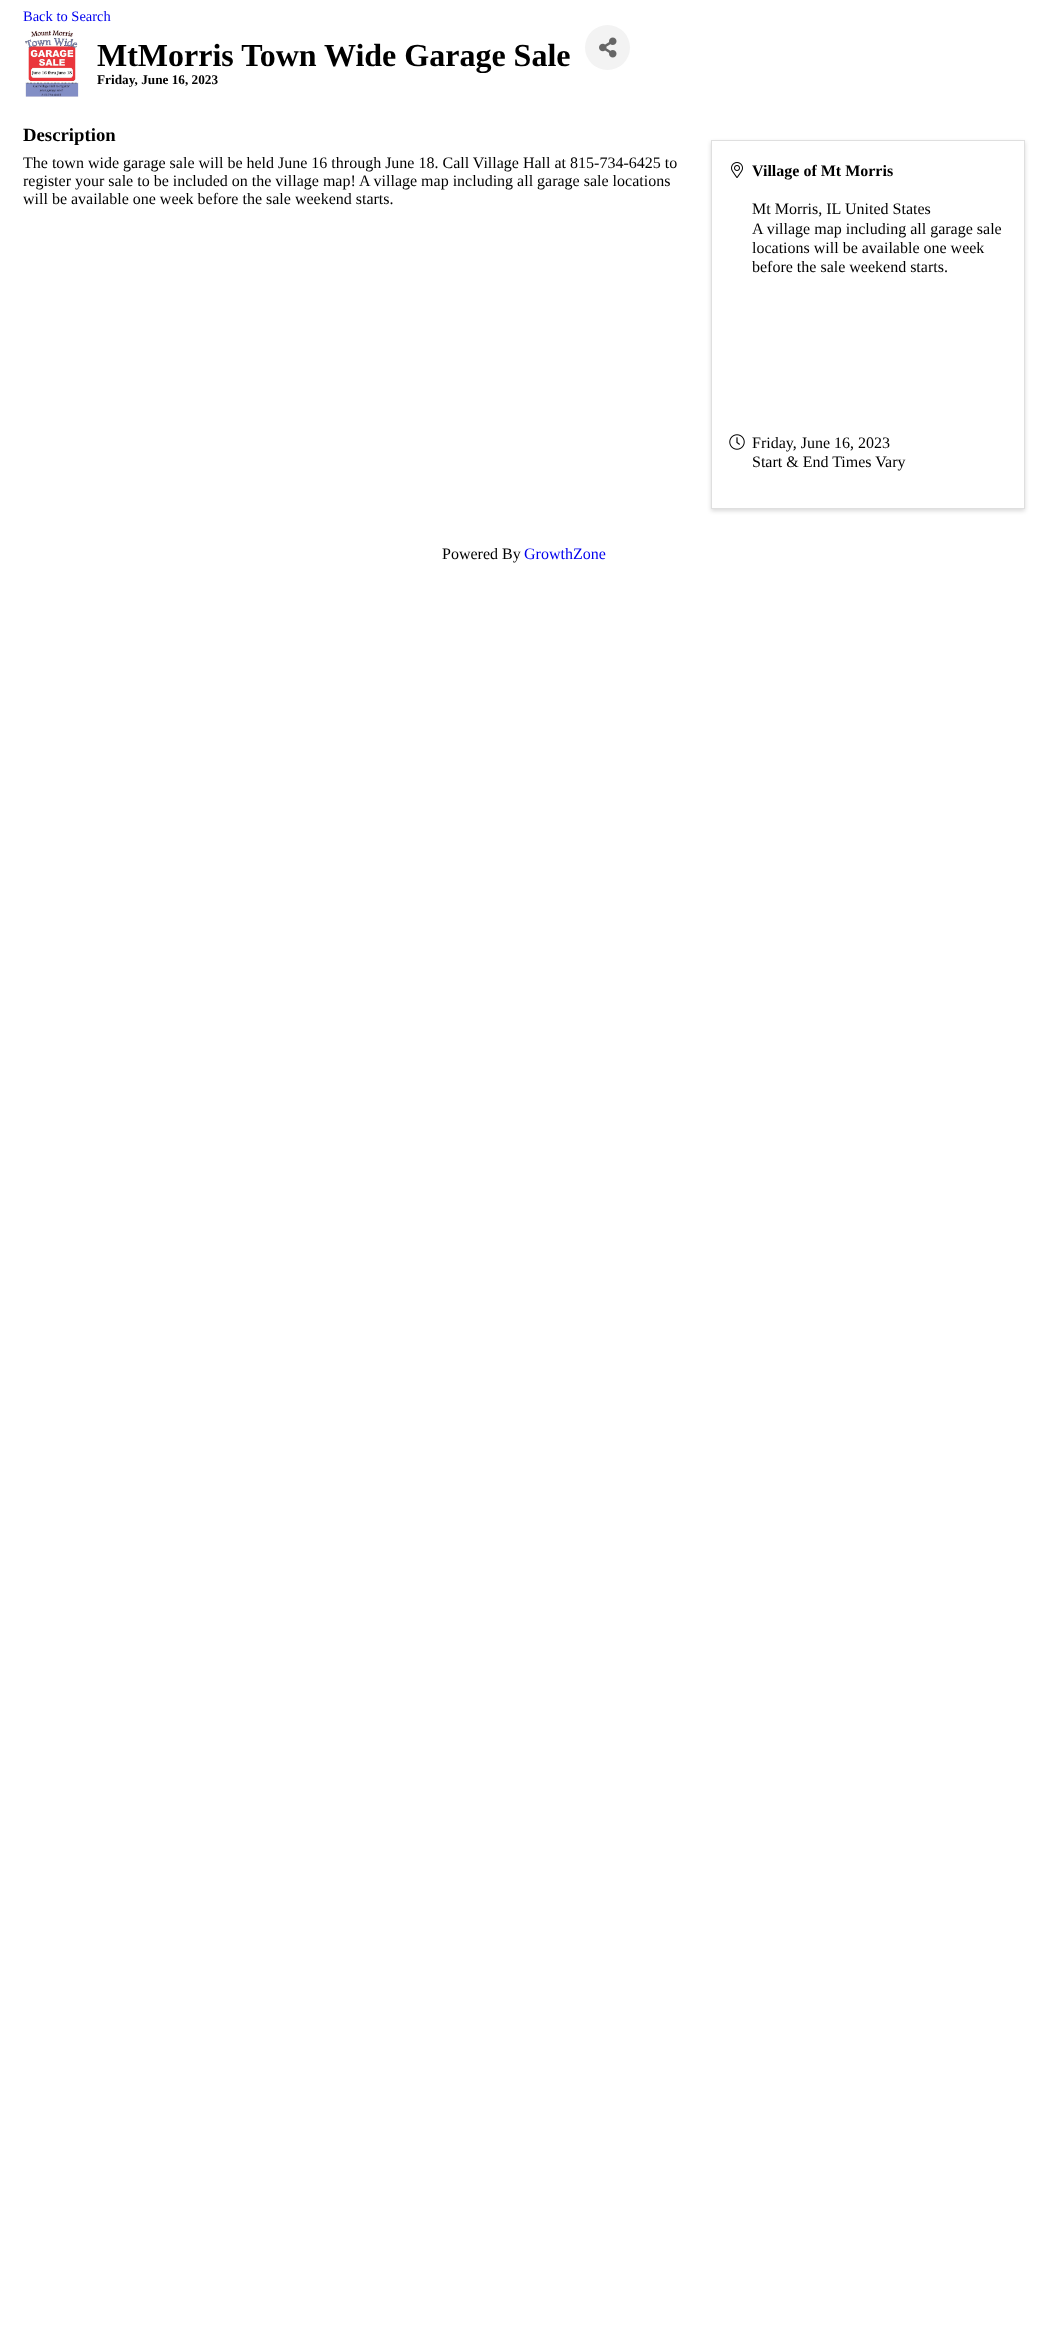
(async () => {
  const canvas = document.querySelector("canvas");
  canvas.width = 1048;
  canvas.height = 2335;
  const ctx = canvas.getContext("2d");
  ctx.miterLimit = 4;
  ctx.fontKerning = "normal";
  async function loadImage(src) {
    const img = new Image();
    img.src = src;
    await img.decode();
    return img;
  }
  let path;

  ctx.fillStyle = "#ffffff";
  ctx.fillRect(0, 0, 1048, 2335);
  ctx.drawImage(await loadImage("img/1.png"), 25, 30, 54, 67);
  ctx.fillStyle = "#f3f3f3";
  ctx.beginPath();
  ctx.arc(607.5, 47.5, 22.5, 0, Math.PI * 2);
  ctx.fill();
  ctx.drawImage(await loadImage("img/2.png"), 599, 37, 18, 21);
  ctx.save();
  path = new Path2D("M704 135H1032V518H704ZM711 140H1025V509H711Z");
  ctx.clip(path, "evenodd");
  ctx.fillStyle = "rgba(0, 0, 0, 0.15)";
  ctx.filter = "blur(2px)";
  ctx.beginPath();
  ctx.rect(711, 142, 314, 369);
  ctx.fill();
  ctx.filter = "none";
  ctx.restore();
  ctx.strokeStyle = "#dfdfdf";
  ctx.strokeRect(711.5, 140.5, 313, 368);
  ctx.drawImage(await loadImage("img/3.png"), 731, 162, 12, 16);
  ctx.drawImage(await loadImage("img/4.png"), 729, 434, 16, 16);
  ctx.font = "14.5px Liberation Serif";
  ctx.fillStyle = "#0000ee";
  ctx.fillText("Back to Search", 23, 21);
  ctx.font = "bold 32px Liberation Serif";
  ctx.fillStyle = "#000000";
  ctx.fillText("MtMorris Town Wide Garage Sale", 97, 66);
  ctx.font = "bold 13.25px Liberation Serif";
  ctx.fillText("Friday, June 16, 2023", 97, 84);
  ctx.font = "bold 18.75px Liberation Serif";
  ctx.fillText("Description", 23, 141);
  ctx.font = "16px Liberation Serif";
  for (const [text, x, y] of [
    ["The town wide garage sale will be held June 16 through June 18. Call Village Hall at 815-734-6425 to", 23, 168],
    ["register your sale to be included on the village map! A village map including all garage sale locations", 23, 186],
    ["will be available one week before the sale weekend starts.", 23, 204],
  ]) {
    ctx.fillText(text, x, y);
  }
  ctx.font = "bold 16px Liberation Serif";
  ctx.fillText("Village of Mt Morris", 752, 176);
  ctx.font = "16px Liberation Serif";
  for (const [text, x, y] of [
    ["Mt Morris, IL", 752, 214],
    ["United States", 845, 214],
    ["A village map including all garage sale", 752, 234],
    ["locations will be available one week", 752, 253],
    ["before the sale weekend starts.", 752, 272],
    ["Friday, June 16, 2023", 752, 448],
    ["Start & End Times Vary", 752, 467],
    ["Powered By", 442, 559],
  ]) {
    ctx.fillText(text, x, y);
  }
  ctx.fillStyle = "#0000ee";
  ctx.fillText("GrowthZone", 524, 559);
})();
